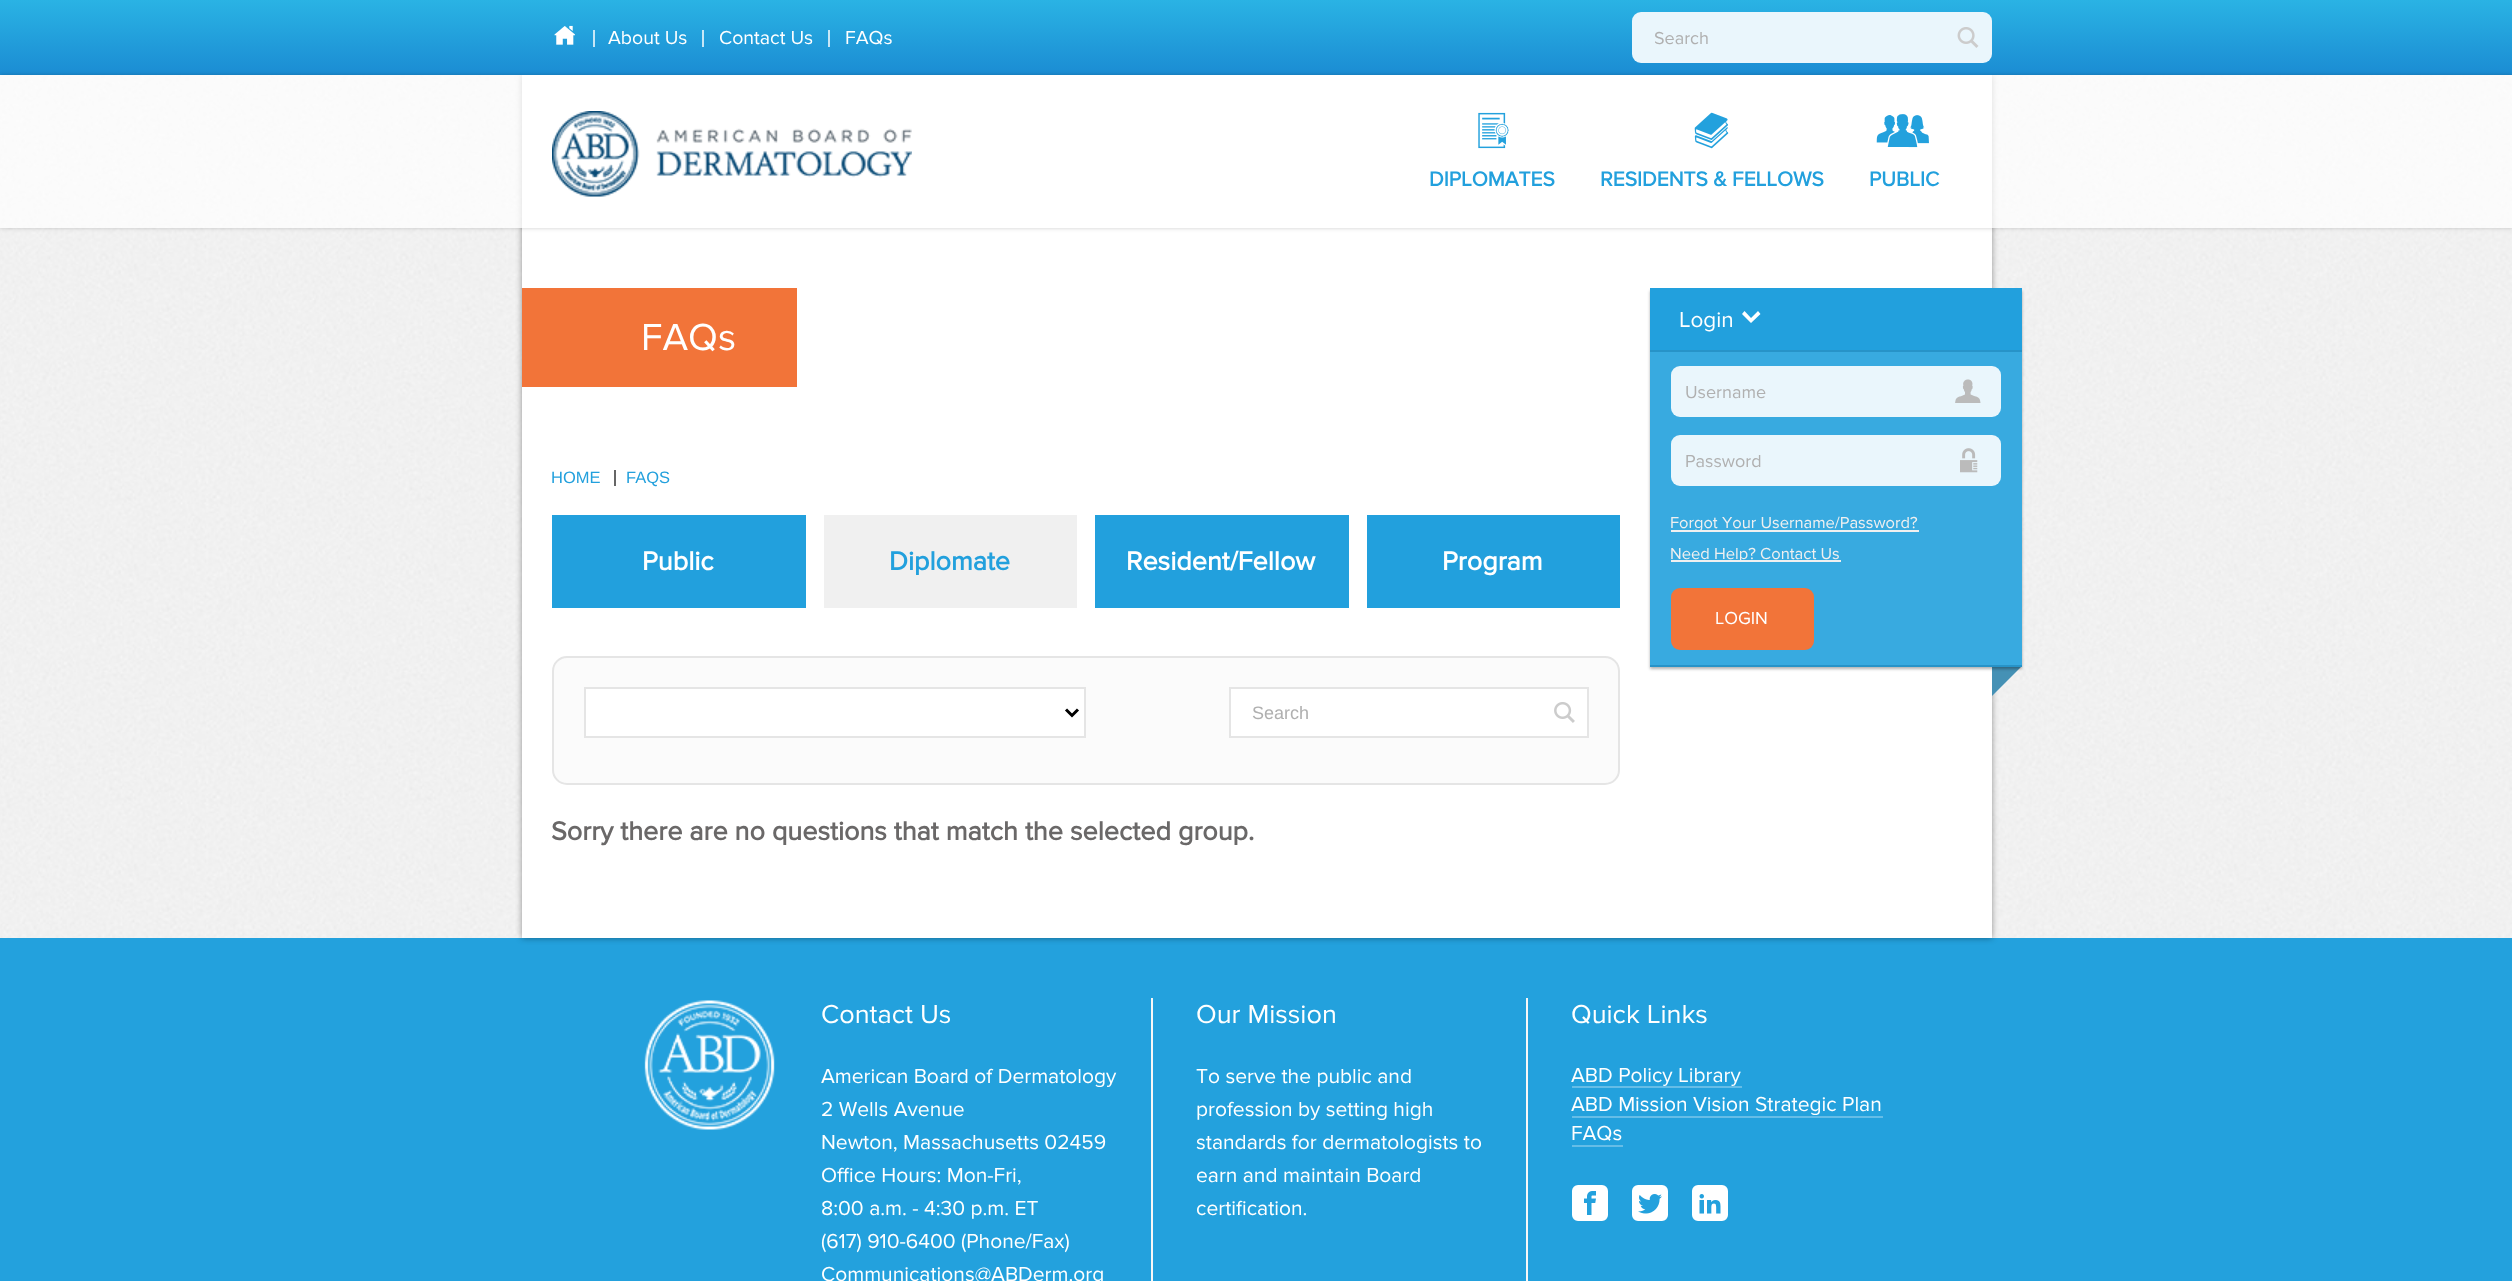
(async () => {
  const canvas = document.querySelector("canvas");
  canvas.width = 2512;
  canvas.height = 1281;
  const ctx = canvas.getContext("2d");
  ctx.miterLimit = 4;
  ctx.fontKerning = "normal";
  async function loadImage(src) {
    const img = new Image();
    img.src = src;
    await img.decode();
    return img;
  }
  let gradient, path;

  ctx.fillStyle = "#ffffff";
  ctx.fillRect(0, 0, 2512, 1281);
  ctx.drawImage(await loadImage("img/1.png"), 0, 75, 2512, 863);
  ctx.fillStyle = "#23a1dd";
  ctx.fillRect(0, 938, 2512, 343);
  ctx.fillStyle = "rgba(0, 0, 0, 0.4)";
  ctx.filter = "blur(3px)";
  ctx.beginPath();
  ctx.rect(522, 75, 1470, 863);
  ctx.fill();
  ctx.filter = "none";
  gradient = ctx.createLinearGradient(1256, 0, 1256, 75);
  gradient.addColorStop(0, "#2ab3e4");
  gradient.addColorStop(1, "#1b8cd3");
  ctx.fillStyle = gradient;
  ctx.fillRect(0, 0, 2512, 75);
  ctx.drawImage(await loadImage("img/2.png"), 554, 25, 21, 20);
  for (const [x, y, w, h, color] of [
    [593, 30, 2, 17, "rgba(255, 255, 255, 0.75)"],
    [702, 30, 2, 17, "rgba(255, 255, 255, 0.75)"],
    [828, 30, 2, 17, "rgba(255, 255, 255, 0.75)"],
  ]) {
    ctx.fillStyle = color;
    ctx.fillRect(x, y, w, h);
  }
  ctx.fillStyle = "#eaf6fc";
  ctx.beginPath();
  ctx.roundRect(1632, 12, 360, 51, 9);
  ctx.fill();
  ctx.drawImage(await loadImage("img/3.png"), 1957, 27, 22, 21);
  ctx.fillStyle = "#ffffff";
  ctx.fillRect(522, 75, 1470, 863);
  ctx.save();
  path = new Path2D("M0 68H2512V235H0ZM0 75H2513V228H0Z");
  ctx.clip(path, "evenodd");
  ctx.fillStyle = "rgba(0, 0, 0, 0.2)";
  ctx.filter = "blur(2px)";
  ctx.beginPath();
  ctx.rect(0, 75, 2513, 153);
  ctx.fill();
  ctx.filter = "none";
  ctx.restore();
  ctx.fillStyle = "rgba(255, 255, 255, 0.7)";
  ctx.fillRect(0, 75, 2512, 153);
  ctx.drawImage(await loadImage("img/4.png"), 552, 111, 360, 86);
  ctx.drawImage(await loadImage("img/5.png"), 1478, 112, 31, 37);
  ctx.drawImage(await loadImage("img/6.png"), 1694, 112, 35, 37);
  ctx.drawImage(await loadImage("img/7.png"), 1876, 114, 53, 34);
  ctx.fillStyle = "#f27439";
  ctx.fillRect(522, 288, 275, 99);
  ctx.fillStyle = "#4591b5";
  path = new Path2D("M1992 666H2022L1992 696Z");
  ctx.fill(path);
  ctx.fillStyle = "rgba(0, 0, 0, 0.3)";
  ctx.filter = "blur(1.5px)";
  ctx.beginPath();
  ctx.rect(1650, 291, 372, 378);
  ctx.fill();
  ctx.filter = "none";
  for (const [x, y, w, h, color] of [
    [1650, 352, 372, 313, "#38aae0"],
    [1650, 288, 372, 62, "#22a0dd"],
    [1650, 350, 372, 2, "#2793c8"],
  ]) {
    ctx.fillStyle = color;
    ctx.fillRect(x, y, w, h);
  }
  ctx.fillStyle = "#ffffff";
  path = new Path2D("M1760.5 314L1751 323L1742 314L1744.5 311L1751 318L1758 311Z");
  ctx.fill(path);
  ctx.fillStyle = "#2793c8";
  ctx.fillRect(1650, 665, 372, 2);
  ctx.fillStyle = "#eaf6fc";
  ctx.beginPath();
  ctx.roundRect(1671, 366, 330, 51, 9);
  ctx.fill();
  ctx.drawImage(await loadImage("img/8.png"), 1955, 379, 26, 24);
  ctx.beginPath();
  ctx.roundRect(1671, 435, 330, 51, 9);
  ctx.fill();
  ctx.drawImage(await loadImage("img/9.png"), 1960, 448, 18, 25);
  ctx.fillStyle = "#f0f0f0";
  ctx.fillRect(1671, 530, 248, 2);
  ctx.fillRect(1671, 560, 170, 2);
  ctx.fillStyle = "#f27439";
  ctx.beginPath();
  ctx.roundRect(1671, 588, 143, 62, 9);
  ctx.fill();
  for (const [x, y, w, h, color] of [
    [614, 470, 2, 16, "#666666"],
    [552, 515, 254, 93, "#22a0dd"],
    [824, 515, 253, 93, "#f0f0f0"],
    [1095, 515, 254, 93, "#22a0dd"],
    [1367, 515, 253, 93, "#22a0dd"],
  ]) {
    ctx.fillStyle = color;
    ctx.fillRect(x, y, w, h);
  }
  ctx.fillStyle = "#fbfbfb";
  ctx.beginPath();
  ctx.roundRect(553, 657, 1066, 127, 14);
  ctx.fill();
  ctx.strokeStyle = "#e5e5e5";
  ctx.lineWidth = 2;
  ctx.stroke();
  ctx.fillStyle = "#ffffff";
  ctx.beginPath();
  ctx.rect(585, 688, 500, 49);
  ctx.fill();
  ctx.stroke();
  path = new Path2D("M1066 709.5L1072 715.5L1078 709.5");
  ctx.strokeStyle = "#000000";
  ctx.lineWidth = 3;
  ctx.stroke(path);
  ctx.beginPath();
  ctx.rect(1230, 688, 358, 49);
  ctx.fill();
  ctx.strokeStyle = "#e5e5e5";
  ctx.lineWidth = 2;
  ctx.stroke();
  ctx.drawImage(await loadImage("img/10.png"), 1554, 702, 21, 21);
  ctx.drawImage(await loadImage("img/11.png"), 644, 1000, 131, 130);
  for (const [x, y, w, h, color] of [
    [1151, 998, 2, 283, "#f7f7f7"],
    [1526, 998, 2, 283, "#f7f7f7"],
    [1572, 1086, 170, 2, "#65bde7"],
    [1572, 1116, 311, 2, "#65bde7"],
    [1572, 1145, 51, 2, "#65bde7"],
  ]) {
    ctx.fillStyle = color;
    ctx.fillRect(x, y, w, h);
  }
  ctx.fillStyle = "#ffffff";
  ctx.beginPath();
  ctx.roundRect(1573, 1186, 34, 34, 5);
  ctx.fill();
  ctx.strokeStyle = "#ffffff";
  ctx.stroke();
  ctx.drawImage(await loadImage("img/12.png"), 1584, 1191, 12, 24);
  ctx.beginPath();
  ctx.roundRect(1633, 1186, 34, 34, 5);
  ctx.fill();
  ctx.stroke();
  ctx.drawImage(await loadImage("img/13.png"), 1638, 1194, 24, 20);
  ctx.beginPath();
  ctx.roundRect(1693, 1186, 34, 34, 5);
  ctx.fill();
  ctx.stroke();
  ctx.drawImage(await loadImage("img/14.png"), 1699, 1194, 22, 20);
  ctx.font = "19.5px Proxima Nova";
  for (const [text, x, y] of [
    ["About Us", 608, 44],
    ["Contact Us", 719, 44],
    ["FAQs", 845, 44],
  ]) {
    ctx.fillText(text, x, y);
  }
  ctx.save();
  ctx.beginPath();
  ctx.rect(1655, 27, 315, 21);
  ctx.clip();
  ctx.font = "18px Proxima Nova";
  ctx.fillStyle = "#b0b0b0";
  ctx.fillText("Search", 1654, 44);
  ctx.restore();
  ctx.font = "bold 21px Proxima Nova";
  ctx.fillStyle = "#22a0dd";
  for (const [text, x, y] of [
    ["DIPLOMATES", 1429, 186],
    ["RESIDENTS & FELLOWS", 1600, 186],
    ["PUBLIC", 1869, 186],
  ]) {
    ctx.fillText(text, x, y);
  }
  ctx.font = "39px Proxima Nova";
  ctx.fillStyle = "#ffffff";
  ctx.fillText("FAQs", 641, 350);
  ctx.font = "22.5px Proxima Nova";
  ctx.fillText("Login", 1679, 327);
  ctx.font = "18px Proxima Nova";
  ctx.fillStyle = "#b0b0b0";
  ctx.fillText("Username", 1685, 398);
  ctx.fillText("Password", 1685, 467);
  ctx.font = "16.5px Proxima Nova";
  ctx.fillStyle = "#f0f0f0";
  ctx.fillText("Forgot Your Username/Password?", 1670, 528);
  ctx.fillText("Need Help? Contact Us", 1670, 559);
  ctx.font = "18px Proxima Nova";
  ctx.fillStyle = "#ffffff";
  ctx.fillText("LOGIN", 1715, 624);
  ctx.font = "16.5px Liberation Sans";
  ctx.fillStyle = "#22a0dd";
  ctx.fillText("HOME", 551, 483);
  ctx.fillText("FAQS", 626, 483);
  ctx.font = "bold 27px Proxima Nova";
  ctx.fillStyle = "#ffffff";
  ctx.fillText("Public", 642, 570);
  ctx.fillStyle = "#22a0dd";
  ctx.fillText("Diplomate", 889, 570);
  ctx.fillStyle = "#ffffff";
  ctx.fillText("Resident/Fellow", 1126, 570);
  ctx.fillText("Program", 1442, 570);
  ctx.font = "18px Liberation Sans";
  ctx.fillStyle = "#b0b0b0";
  ctx.fillText("Search", 1252, 719);
  ctx.font = "bold 27px Proxima Nova";
  ctx.fillStyle = "#6a6868";
  ctx.fillText("Sorry there are no questions that match the selected group.", 551, 840);
  ctx.font = "27px Proxima Nova";
  ctx.fillStyle = "#ffffff";
  ctx.fillText("Contact Us", 821, 1023);
  ctx.font = "21px Proxima Nova";
  for (const [text, x, y] of [
    ["American Board of Dermatology", 821, 1083],
    ["2 Wells Avenue", 821, 1116],
    ["Newton, Massachusetts 02459", 821, 1149],
    ["Office Hours: Mon-Fri,", 821, 1182],
    ["8:00 a.m. - 4:30 p.m. ET", 821, 1215],
    ["(617) 910-6400 (Phone/Fax)", 821, 1248],
    ["Communications@ABDerm.org", 821, 1281],
  ]) {
    ctx.fillText(text, x, y);
  }
  ctx.font = "27px Proxima Nova";
  ctx.fillText("Our Mission", 1196, 1023);
  ctx.font = "21px Proxima Nova";
  for (const [text, x, y] of [
    ["To serve the public and", 1196, 1083],
    ["profession by setting high", 1196, 1116],
    ["standards for dermatologists to", 1196, 1149],
    ["earn and maintain Board", 1196, 1182],
    ["certification.", 1196, 1215],
  ]) {
    ctx.fillText(text, x, y);
  }
  ctx.font = "27px Proxima Nova";
  ctx.fillText("Quick Links", 1571, 1023);
  ctx.font = "21px Proxima Nova";
  for (const [text, x, y] of [
    ["ABD Policy Library", 1571, 1082],
    ["ABD Mission Vision Strategic Plan", 1571, 1111],
    ["FAQs", 1571, 1140],
  ]) {
    ctx.fillText(text, x, y);
  }
})();
